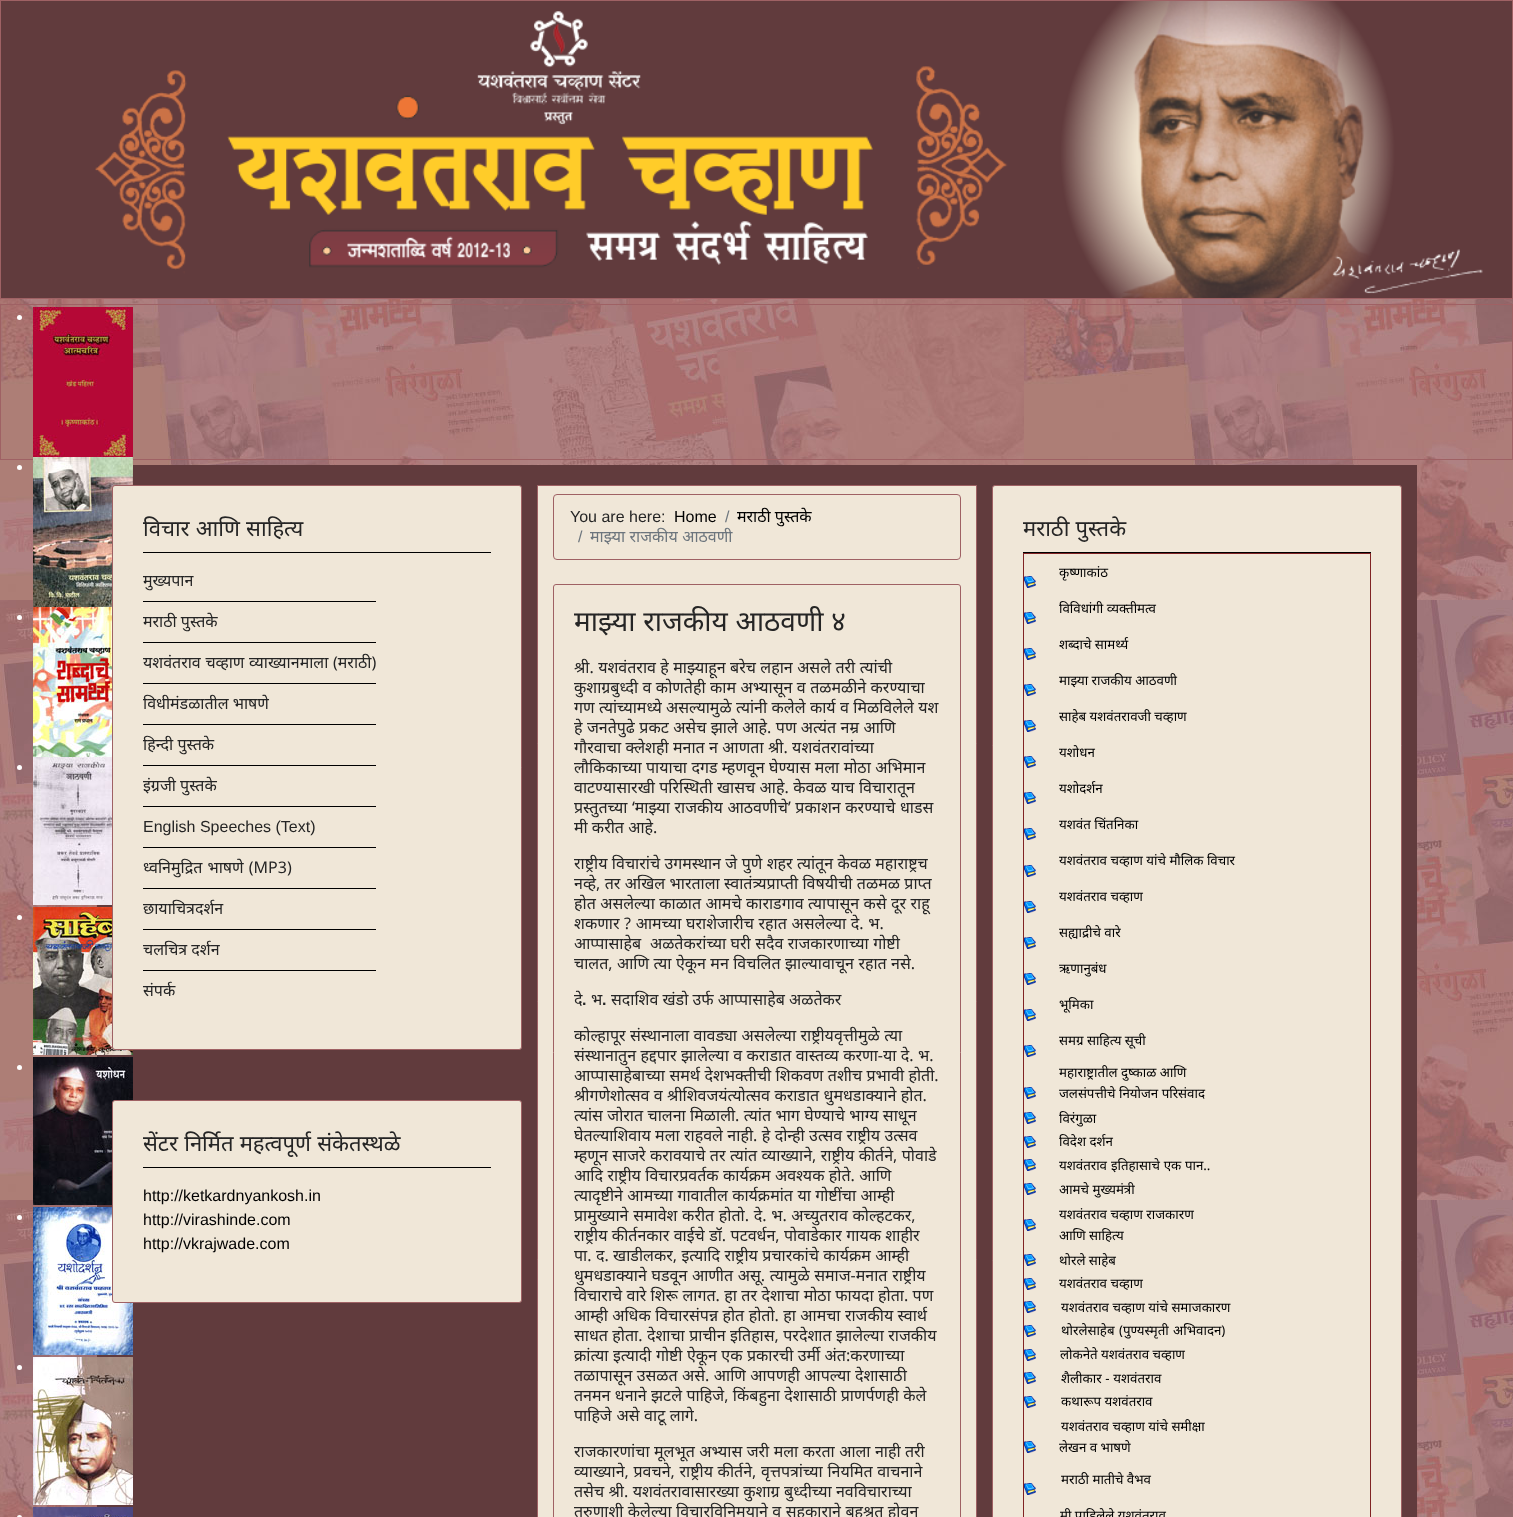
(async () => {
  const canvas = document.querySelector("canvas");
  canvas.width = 1513;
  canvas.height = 1517;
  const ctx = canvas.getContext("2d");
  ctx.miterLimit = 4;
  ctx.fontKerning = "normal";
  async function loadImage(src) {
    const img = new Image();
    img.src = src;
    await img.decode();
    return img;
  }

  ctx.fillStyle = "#ffffff";
  ctx.fillRect(0, 0, 1513, 1517);
  ctx.drawImage(await loadImage("img/1.png"), 0, 299, 1513, 1218);
  ctx.strokeStyle = "#9f6164";
  ctx.strokeRect(0.5, 0.5, 1512, 298);
  ctx.drawImage(await loadImage("img/2.png"), 1, 1, 1511, 297);
  ctx.strokeRect(0.5, 304.5, 1512, 155);
  ctx.beginPath();
  ctx.arc(19.5, 317.5, 2.5, 0, Math.PI * 2);
  ctx.fill();
  ctx.drawImage(await loadImage("img/3.png"), 33, 307, 100, 150);
  ctx.beginPath();
  ctx.arc(19.5, 467.5, 2.5, 0, Math.PI * 2);
  ctx.fill();
  ctx.fillStyle = "#613b3d";
  ctx.fillRect(97, 465, 1320, 1052);
  ctx.drawImage(await loadImage("img/4.png"), 33, 457, 100, 150);
  ctx.fillStyle = "#ffffff";
  ctx.beginPath();
  ctx.arc(19.5, 617.5, 2.5, 0, Math.PI * 2);
  ctx.fill();
  ctx.drawImage(await loadImage("img/5.png"), 33, 607, 79, 150);
  ctx.beginPath();
  ctx.arc(19.5, 767.5, 2.5, 0, Math.PI * 2);
  ctx.fill();
  ctx.drawImage(await loadImage("img/6.png"), 33, 757, 79, 148);
  ctx.beginPath();
  ctx.arc(19.5, 917.5, 2.5, 0, Math.PI * 2);
  ctx.fill();
  ctx.drawImage(await loadImage("img/7.png"), 33, 907, 100, 148);
  ctx.beginPath();
  ctx.arc(19.5, 1067.5, 2.5, 0, Math.PI * 2);
  ctx.fill();
  ctx.drawImage(await loadImage("img/8.png"), 33, 1057, 100, 148);
  ctx.beginPath();
  ctx.arc(19.5, 1217.5, 2.5, 0, Math.PI * 2);
  ctx.fill();
  ctx.drawImage(await loadImage("img/9.png"), 33, 1207, 100, 148);
  ctx.beginPath();
  ctx.arc(19.5, 1367.5, 2.5, 0, Math.PI * 2);
  ctx.fill();
  ctx.drawImage(await loadImage("img/10.png"), 33, 1357, 100, 148);
  ctx.drawImage(await loadImage("img/11.png"), 33, 1507, 100, 10);
  ctx.beginPath();
  ctx.arc(19.5, 1517.5, 2.5, 0, Math.PI * 2);
  ctx.fill();
  ctx.fillStyle = "#f0e7d8";
  ctx.beginPath();
  ctx.roundRect(112.5, 485.5, 409, 564, 2.5);
  ctx.fill();
  ctx.stroke();
  for (const [x, y, w, h, color] of [
    [143, 552, 348, 1, "#000000"],
    [143, 601, 233, 1, "#000000"],
    [143, 642, 233, 1, "#000000"],
    [143, 683, 233, 1, "#000000"],
    [143, 724, 233, 1, "#000000"],
    [143, 765, 233, 1, "#000000"],
    [143, 806, 233, 1, "#000000"],
    [143, 847, 233, 1, "#000000"],
    [143, 888, 233, 1, "#000000"],
    [143, 929, 233, 1, "#000000"],
    [143, 970, 233, 1, "#000000"],
  ]) {
    ctx.fillStyle = color;
    ctx.fillRect(x, y, w, h);
  }
  ctx.fillStyle = "#f0e7d8";
  ctx.beginPath();
  ctx.roundRect(112.5, 1100.5, 409, 202, 2.5);
  ctx.fill();
  ctx.stroke();
  ctx.fillStyle = "#000000";
  ctx.fillRect(143, 1167, 348, 1);
  ctx.fillStyle = "#f0e7d8";
  ctx.beginPath();
  ctx.rect(537.5, 485.5, 439, 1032);
  ctx.fill();
  ctx.stroke();
  ctx.beginPath();
  ctx.roundRect(553.5, 494.5, 407, 65, 3.5);
  ctx.stroke();
  ctx.beginPath();
  ctx.roundRect(553.5, 584.5, 407, 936, 2.5);
  ctx.stroke();
  ctx.beginPath();
  ctx.roundRect(992.5, 485.5, 409, 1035, 2.5);
  ctx.fill();
  ctx.stroke();
  for (const [x, y, w, h, color] of [
    [1023, 552, 348, 1, "#000000"],
    [1023, 553, 348, 1, "#802323"],
    [1370, 553, 1, 964, "#802323"],
    [1023, 553, 1, 964, "#802323"],
  ]) {
    ctx.fillStyle = color;
    ctx.fillRect(x, y, w, h);
  }
  ctx.drawImage(await loadImage("img/12.png"), 1024, 576, 12, 12);
  ctx.drawImage(await loadImage("img/12.png"), 1024, 612, 12, 12);
  ctx.drawImage(await loadImage("img/12.png"), 1024, 648, 12, 12);
  ctx.drawImage(await loadImage("img/12.png"), 1024, 684, 12, 12);
  ctx.drawImage(await loadImage("img/12.png"), 1024, 720, 12, 12);
  ctx.drawImage(await loadImage("img/12.png"), 1024, 756, 12, 12);
  ctx.drawImage(await loadImage("img/12.png"), 1024, 792, 12, 12);
  ctx.drawImage(await loadImage("img/12.png"), 1024, 828, 12, 12);
  ctx.drawImage(await loadImage("img/12.png"), 1024, 865, 12, 12);
  ctx.drawImage(await loadImage("img/12.png"), 1024, 901, 12, 12);
  ctx.drawImage(await loadImage("img/12.png"), 1024, 937, 12, 12);
  ctx.drawImage(await loadImage("img/12.png"), 1024, 973, 12, 12);
  ctx.drawImage(await loadImage("img/12.png"), 1024, 1009, 12, 12);
  ctx.drawImage(await loadImage("img/12.png"), 1024, 1045, 12, 12);
  ctx.drawImage(await loadImage("img/12.png"), 1024, 1087, 12, 12);
  ctx.drawImage(await loadImage("img/12.png"), 1024, 1112, 12, 12);
  ctx.drawImage(await loadImage("img/12.png"), 1024, 1136, 12, 12);
  ctx.drawImage(await loadImage("img/12.png"), 1024, 1159, 12, 12);
  ctx.drawImage(await loadImage("img/12.png"), 1024, 1183, 12, 12);
  ctx.drawImage(await loadImage("img/12.png"), 1024, 1219, 12, 12);
  ctx.drawImage(await loadImage("img/12.png"), 1024, 1254, 12, 12);
  ctx.drawImage(await loadImage("img/12.png"), 1024, 1278, 12, 12);
  ctx.drawImage(await loadImage("img/12.png"), 1024, 1301, 12, 12);
  ctx.drawImage(await loadImage("img/12.png"), 1024, 1325, 12, 12);
  ctx.drawImage(await loadImage("img/12.png"), 1024, 1349, 12, 12);
  ctx.drawImage(await loadImage("img/12.png"), 1024, 1372, 12, 12);
  ctx.drawImage(await loadImage("img/12.png"), 1024, 1396, 12, 12);
  ctx.drawImage(await loadImage("img/12.png"), 1024, 1441, 12, 12);
  ctx.drawImage(await loadImage("img/12.png"), 1024, 1483, 12, 12);
  ctx.wordSpacing = "0.5px";
  ctx.font = "22px Noto Sans";
  ctx.fillStyle = "#252525";
  ctx.fillText("विचार आणि साहित्य", 143, 536);
  ctx.wordSpacing = "0px";
  ctx.font = "16px Noto Sans";
  ctx.fillText("मुख्यपान", 143, 586);
  ctx.fillText("मराठी पुस्तके", 143, 627);
  ctx.wordSpacing = "0.5px";
  ctx.fillText("यशवंतराव चव्हाण व्याख्यानमाला (मराठी)", 143, 668);
  ctx.wordSpacing = "0px";
  for (const [text, x, y] of [
    ["विधीमंडळातील भाषणे", 143, 709],
    ["हिन्दी पुस्तके", 143, 750],
    ["इंग्रजी पुस्तके", 143, 791],
  ]) {
    ctx.fillText(text, x, y);
  }
  ctx.font = "16px Liberation Sans";
  ctx.fillText("English Speeches (Text)", 143, 832);
  ctx.wordSpacing = "1px";
  ctx.font = "16px Noto Sans";
  ctx.fillText("ध्वनिमुद्रित भाषणे (MP3)", 143, 873);
  ctx.wordSpacing = "0px";
  for (const [text, x, y] of [
    ["छायाचित्रदर्शन", 143, 914],
    ["चलचित्र दर्शन", 143, 955],
    ["संपर्क", 143, 996],
  ]) {
    ctx.fillText(text, x, y);
  }
  ctx.wordSpacing = "0.5px";
  ctx.font = "22px Noto Sans";
  ctx.fillText("सेंटर निर्मित महत्वपूर्ण संकेतस्थळे", 143, 1151);
  ctx.wordSpacing = "0px";
  ctx.font = "16px Liberation Sans";
  ctx.fillStyle = "#000000";
  for (const [text, x, y] of [
    ["http://ketkardnyankosh.in", 143, 1201],
    ["http://virashinde.com", 143, 1225],
    ["http://vkrajwade.com", 143, 1249],
  ]) {
    ctx.fillText(text, x, y);
  }
  ctx.fillStyle = "#252525";
  ctx.fillText("You are here:", 570, 522);
  ctx.fillStyle = "#000000";
  ctx.fillText("Home", 674, 522);
  ctx.fillStyle = "#6c757d";
  ctx.fillText("/", 725, 522);
  ctx.font = "16px Noto Sans";
  ctx.fillStyle = "#000000";
  ctx.fillText("मराठी पुस्तके", 737, 522);
  ctx.font = "16px Liberation Sans";
  ctx.fillStyle = "#6c757d";
  ctx.fillText("/", 578, 542);
  ctx.wordSpacing = "0.25px";
  ctx.font = "16px Noto Sans";
  ctx.fillText("माझ्या राजकीय आठवणी", 590, 542);
  ctx.wordSpacing = "0.5px";
  ctx.font = "28px Noto Sans";
  ctx.fillStyle = "#252525";
  ctx.fillText("माझ्या राजकीय आठवणी ४", 574, 631);
  ctx.wordSpacing = "0.25px";
  ctx.font = "16px Noto Sans";
  for (const [text, x, y] of [
    ["श्री. यशवंतराव हे माझ्याहून बरेच लहान असले तरी त्यांची", 574, 673],
    ["कुशाग्रबुध्दी व कोणतेही काम अभ्यासून व तळमळीने करण्याचा", 574, 693],
    ["गण त्यांच्यामध्ये असल्यामुळे त्यांनी कलेले कार्य व मिळविलेले यश", 574, 713],
    ["हे जनतेपुढे प्रकट असेच झाले आहे. पण अत्यंत नम्र आणि", 574, 733],
    ["गौरवाचा क्लेशही मनात न आणता श्री. यशवंतरावांच्या", 574, 753],
    ["लौकिकाच्या पायाचा दगड म्हणवून घेण्यास मला मोठा अभिमान", 574, 773],
    ["वाटण्यासारखी परिस्थिती खासच आहे. केवळ याच विचारातून", 574, 793],
  ]) {
    ctx.fillText(text, x, y);
  }
  ctx.wordSpacing = "0.5px";
  ctx.fillText("प्रस्तुतच्या ‘माझ्या राजकीय आठवणीचे’ प्रकाशन करण्याचे धाडस", 574, 813);
  ctx.wordSpacing = "0px";
  ctx.fillText("मी करीत आहे.", 574, 833);
  ctx.wordSpacing = "0.25px";
  for (const [text, x, y] of [
    ["राष्ट्रीय विचारांचे उगमस्थान जे पुणे शहर त्यांतून केवळ महाराष्ट्रच", 574, 869],
    ["नव्हे, तर अखिल भारताला स्वातंत्र्यप्राप्ती विषयीची तळमळ प्राप्त", 574, 889],
    ["होत असलेल्या काळात आमचे काराडगाव त्यापासून कसे दूर राहू", 574, 909],
  ]) {
    ctx.fillText(text, x, y);
  }
  ctx.wordSpacing = "0.5px";
  ctx.fillText("शकणार ? आमच्या घराशेजारीच रहात असलेल्या दे. भ.", 574, 929);
  ctx.wordSpacing = "0.25px";
  ctx.fillText("आप्पासाहेब  अळतेकरांच्या घरी सदैव राजकारणाच्या गोष्टी", 574, 949);
  ctx.fillText("चालत, आणि त्या ऐकून मन विचलित झाल्यावाचून रहात नसे.", 574, 969);
  ctx.wordSpacing = "0px";
  ctx.fillText("दे", 574, 1005);
  ctx.font = "bold 16px Liberation Sans";
  ctx.fillText(".", 582, 1005);
  ctx.font = "16px Noto Sans";
  ctx.fillText("भ", 591, 1005);
  ctx.font = "bold 16px Liberation Sans";
  ctx.fillText(".", 602, 1005);
  ctx.font = "16px Noto Sans";
  ctx.fillText("सदाशिव खंडो उर्फ आप्पासाहेब अळतेकर", 611, 1005);
  ctx.wordSpacing = "0.25px";
  for (const [text, x, y] of [
    ["कोल्हापूर संस्थानाला वावड्या असलेल्या राष्ट्रीयवृत्तीमुळे त्या", 574, 1041],
    ["संस्थानातुन हद्दपार झालेल्या व कराडात वास्तव्य करणा-या दे. भ.", 574, 1061],
    ["आप्पासाहेबाच्या समर्थ देशभक्तीची शिकवण तशीच प्रभावी होती.", 574, 1081],
    ["श्रीगणेशोत्सव व श्रीशिवजयंत्योत्सव कराडात धुमधडाक्याने होत.", 574, 1101],
    ["त्यांस जोरात चालना मिळाली. त्यांत भाग घेण्याचे भाग्य साधून", 574, 1121],
    ["घेतल्याशिवाय मला राहवले नाही. हे दोन्ही उत्सव राष्ट्रीय उत्सव", 574, 1141],
    ["म्हणून साजरे करावयाचे तर त्यांत व्याख्याने, राष्ट्रीय कीर्तने, पोवाडे", 574, 1161],
    ["आदि राष्ट्रीय विचारप्रवर्तक कार्यक्रम अवश्यक होते. आणि", 574, 1181],
    ["त्यादृष्टीने आमच्या गावातील कार्यक्रमांत या गोष्टींचा आम्ही", 574, 1201],
  ]) {
    ctx.fillText(text, x, y);
  }
  ctx.wordSpacing = "0.5px";
  ctx.fillText("प्रामुख्याने समावेश करीत होतो. दे. भ. अच्युतराव कोल्हटकर,", 574, 1221);
  ctx.wordSpacing = "0.25px";
  ctx.fillText("राष्ट्रीय कीर्तनकार वाईचे डॉ. पटवर्धन, पोवाडेकार गायक शाहीर", 574, 1241);
  ctx.fillText("पा. द. खाडीलकर, इत्यादि राष्ट्रीय प्रचारकांचे कार्यक्रम आम्ही", 574, 1261);
  ctx.wordSpacing = "0.5px";
  ctx.fillText("धुमधडाक्याने घडवून आणीत असू. त्यामुळे समाज-मनात राष्ट्रीय", 574, 1281);
  ctx.wordSpacing = "0.25px";
  for (const [text, x, y] of [
    ["विचाराचे वारे शिरू लागत. हा तर देशाचा मोठा फायदा होता. पण", 574, 1301],
    ["आम्ही अधिक विचारसंपन्न होत होतो. हा आमचा राजकीय स्वार्थ", 574, 1321],
    ["साधत होता. देशाचा प्राचीन इतिहास, परदेशात झालेल्या राजकीय", 574, 1341],
    ["क्रांत्या इत्यादी गोष्टी ऐकून एक प्रकारची उर्मी अंत:करणाच्या", 574, 1361],
    ["तळापासून उसळत असे. आणि आपणही आपल्या देशासाठी", 574, 1381],
    ["तनमन धनाने झटले पाहिजे, किंबहुना देशासाठी प्राणर्पणही केले", 574, 1401],
  ]) {
    ctx.fillText(text, x, y);
  }
  ctx.wordSpacing = "0.5px";
  ctx.fillText("पाहिजे असे वाटू लागे.", 574, 1421);
  ctx.wordSpacing = "0.25px";
  ctx.fillText("राजकारणांचा मूलभूत अभ्यास जरी मला करता आला नाही तरी", 574, 1457);
  ctx.wordSpacing = "0.5px";
  ctx.fillText("व्याख्याने, प्रवचने, राष्ट्रीय कीर्तने, वृत्तपत्रांच्या नियमित वाचनाने", 574, 1477);
  ctx.wordSpacing = "0.25px";
  ctx.fillText("तसेच श्री. यशवंतरावासारख्या कुशाग्र बुध्दीच्या नवविचाराच्या", 574, 1497);
  ctx.fillText("तरुणाशी केलेल्या विचारविनिमयाने व सहकाराने बहुश्रुत होवून", 574, 1517);
  ctx.wordSpacing = "0.5px";
  ctx.font = "22px Noto Sans";
  ctx.fillText("मराठी पुस्तके", 1023, 536);
  ctx.wordSpacing = "0px";
  ctx.font = "13.3px Noto Sans";
  ctx.fillStyle = "#000000";
  for (const [text, x, y] of [
    ["कृष्णाकांठ", 1059, 577],
    ["विविधांगी व्यक्तीमत्व", 1059, 613],
    ["शब्दाचे सामर्थ्य", 1059, 649],
    ["माझ्या राजकीय आठवणी", 1059, 685],
    ["साहेब यशवंतरावजी चव्हाण", 1059, 721],
    ["यशोधन", 1059, 757],
    ["यशोदर्शन", 1059, 793],
    ["यशवंत चिंतनिका", 1059, 829],
    ["यशवंतराव चव्हाण यांचे मौलिक विचार", 1059, 865],
    ["यशवंतराव चव्हाण", 1059, 901],
    ["सह्याद्रीचे वारे", 1059, 937],
    ["ऋणानुबंध", 1059, 973],
    ["भूमिका", 1059, 1009],
    ["समग्र साहित्य सूची", 1059, 1045],
    ["महाराष्ट्रातील दुष्काळ आणि", 1059, 1077],
    ["जलसंपत्तीचे नियोजन परिसंवाद", 1059, 1098],
    ["विरंगुळा", 1059, 1123],
    ["विदेश दर्शन", 1059, 1146],
    ["यशवंतराव", 1059, 1170],
  ]) {
    ctx.fillText(text, x, y);
  }
  ctx.wordSpacing = "0.25px";
  ctx.fillText("इतिहासाचे एक पान..", 1111, 1170);
  ctx.wordSpacing = "0px";
  for (const [text, x, y] of [
    ["आमचे मुख्यमंत्री", 1059, 1194],
    ["यशवंतराव चव्हाण राजकारण", 1059, 1219],
    ["आणि साहित्य", 1059, 1240],
    ["थोरले साहेब", 1059, 1265],
    ["यशवंतराव चव्हाण", 1059, 1288],
    ["यशवंतराव चव्हाण यांचे समाजकारण", 1061, 1312],
  ]) {
    ctx.fillText(text, x, y);
  }
  ctx.wordSpacing = "1px";
  ctx.fillText("थोरलेसाहेब (पुण्यस्मृती अभिवादन)", 1061, 1335);
  ctx.wordSpacing = "0px";
  ctx.fillText("लोकनेते यशवंतराव चव्हाण", 1060, 1359);
  ctx.wordSpacing = "0.25px";
  ctx.fillText("शैलीकार - यशवंतराव", 1061, 1383);
  ctx.wordSpacing = "0px";
  for (const [text, x, y] of [
    ["कथारूप यशवंतराव", 1061, 1406],
    ["यशवंतराव चव्हाण यांचे समीक्षा", 1061, 1431],
    ["लेखन व भाषणे", 1059, 1452],
    ["मराठी मातीचे वैभव", 1061, 1484],
    ["मी पाहिलेले यशवंतराव", 1060, 1520],
  ]) {
    ctx.fillText(text, x, y);
  }
})();
